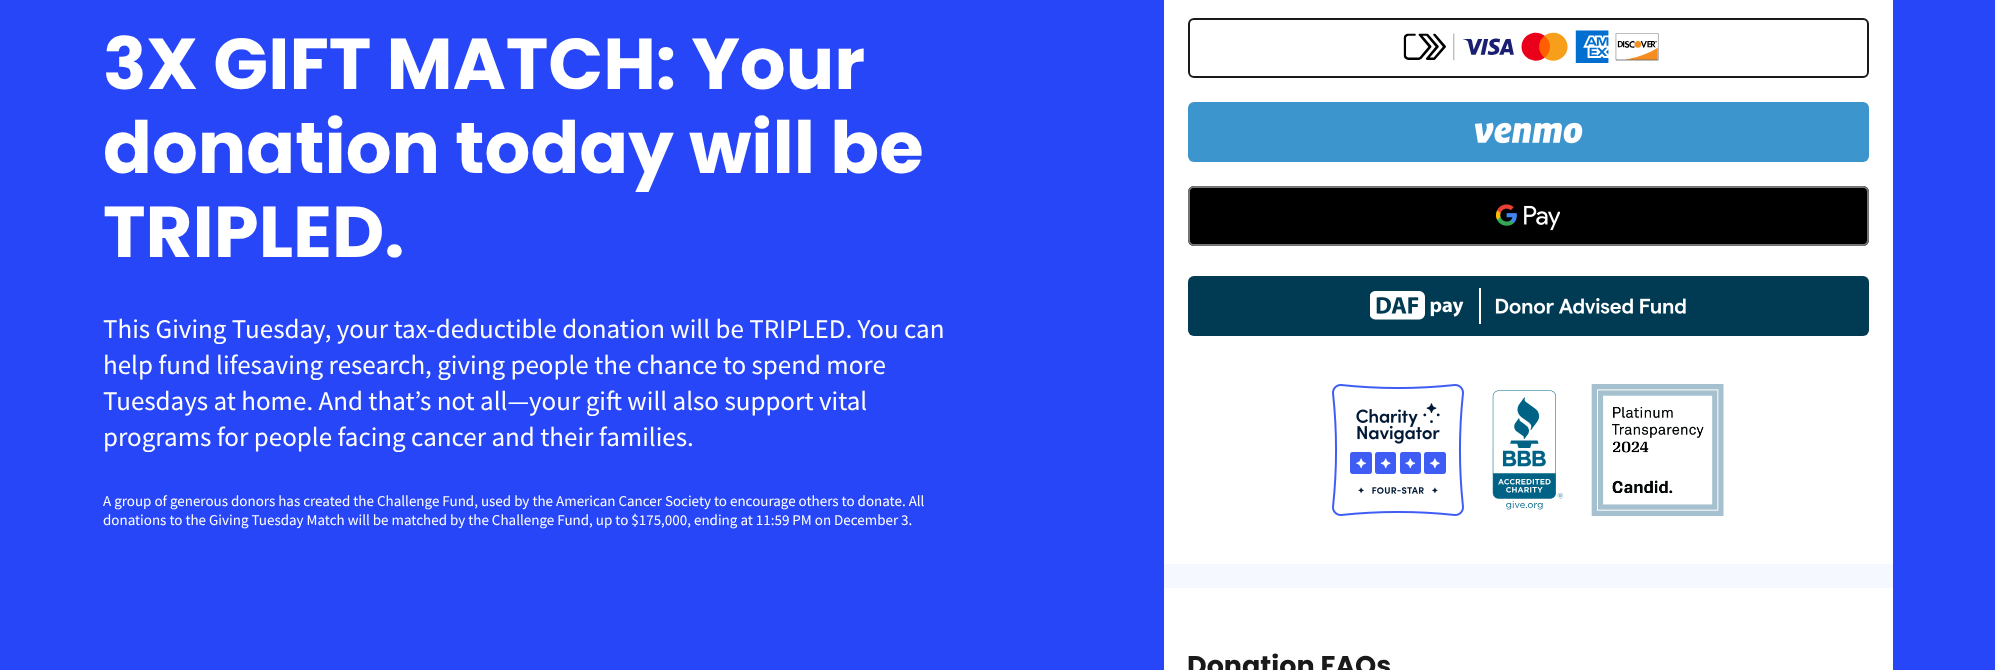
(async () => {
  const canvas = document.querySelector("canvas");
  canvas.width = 1995;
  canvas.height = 670;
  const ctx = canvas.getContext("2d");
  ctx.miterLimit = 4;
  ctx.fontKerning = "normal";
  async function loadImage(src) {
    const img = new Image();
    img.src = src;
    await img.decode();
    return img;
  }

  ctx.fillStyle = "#2746f8";
  ctx.fillRect(0, 0, 1995, 670);
  ctx.fillStyle = "#f6f8ff";
  ctx.fillRect(1164, 564, 729, 24);
  ctx.fillStyle = "#ffffff";
  ctx.fillRect(1164, 0, 729, 564);
  ctx.beginPath();
  ctx.roundRect(1189, 19, 679, 58, 5);
  ctx.strokeStyle = "#1a1a1a";
  ctx.lineWidth = 2;
  ctx.stroke();
  ctx.drawImage(await loadImage("img/1.png"), 1403, 30, 256, 33);
  ctx.fillStyle = "#3d95ce";
  ctx.beginPath();
  ctx.roundRect(1188, 102, 681, 60, 6);
  ctx.fill();
  ctx.drawImage(await loadImage("img/2.png"), 1475, 122, 108, 22);
  ctx.fillStyle = "#000000";
  ctx.beginPath();
  ctx.roundRect(1188, 186, 681, 60, 6);
  ctx.fill();
  ctx.drawImage(await loadImage("img/3.png"), 1496, 204, 64, 27);
  ctx.beginPath();
  ctx.roundRect(1189, 187, 679, 58, 5);
  ctx.strokeStyle = "#757575";
  ctx.stroke();
  ctx.fillStyle = "#013a53";
  ctx.beginPath();
  ctx.roundRect(1188, 276, 681, 60, 6);
  ctx.fill();
  ctx.drawImage(await loadImage("img/4.png"), 1370, 288, 316, 36);
  ctx.drawImage(await loadImage("img/5.png"), 1332, 384, 132, 132);
  ctx.drawImage(await loadImage("img/6.png"), 1492, 390, 71, 120);
  ctx.drawImage(await loadImage("img/7.png"), 1591, 384, 133, 132);
  ctx.fillStyle = "#ffffff";
  ctx.fillRect(1164, 588, 729, 82);
  ctx.font = "bold 72px Poppins";
  for (const [text, x, y] of [
    ["3X GIFT MATCH: Your", 103, 89],
    ["donation today will be", 103, 173],
    ["TRIPLED.", 103, 257],
  ]) {
    ctx.fillText(text, x, y);
  }
  ctx.font = "27px Source Sans Pro";
  for (const [text, x, y] of [
    ["This Giving Tuesday, your tax-deductible donation will be TRIPLED. You can", 103, 338],
    ["help fund lifesaving research, giving people the chance to spend more", 103, 374],
    ["Tuesdays at home. And that’s not all—your gift will also support vital", 103, 410],
    ["programs for people facing cancer and their families.", 103, 446],
  ]) {
    ctx.fillText(text, x, y);
  }
  ctx.font = "15px Source Sans Pro";
  ctx.fillText("A group of generous donors has created the Challenge Fund, used by the American Cancer Society to encourage others to donate. All", 103, 506);
  ctx.fillText("donations to the Giving Tuesday Match will be matched by the Challenge Fund, up to $175,000, ending at 11:59 PM on December 3.", 103, 525);
  ctx.font = "bold 27px Poppins";
  ctx.fillStyle = "#1a1a1a";
  ctx.fillText("Donation FAQs", 1187, 675);
})();
